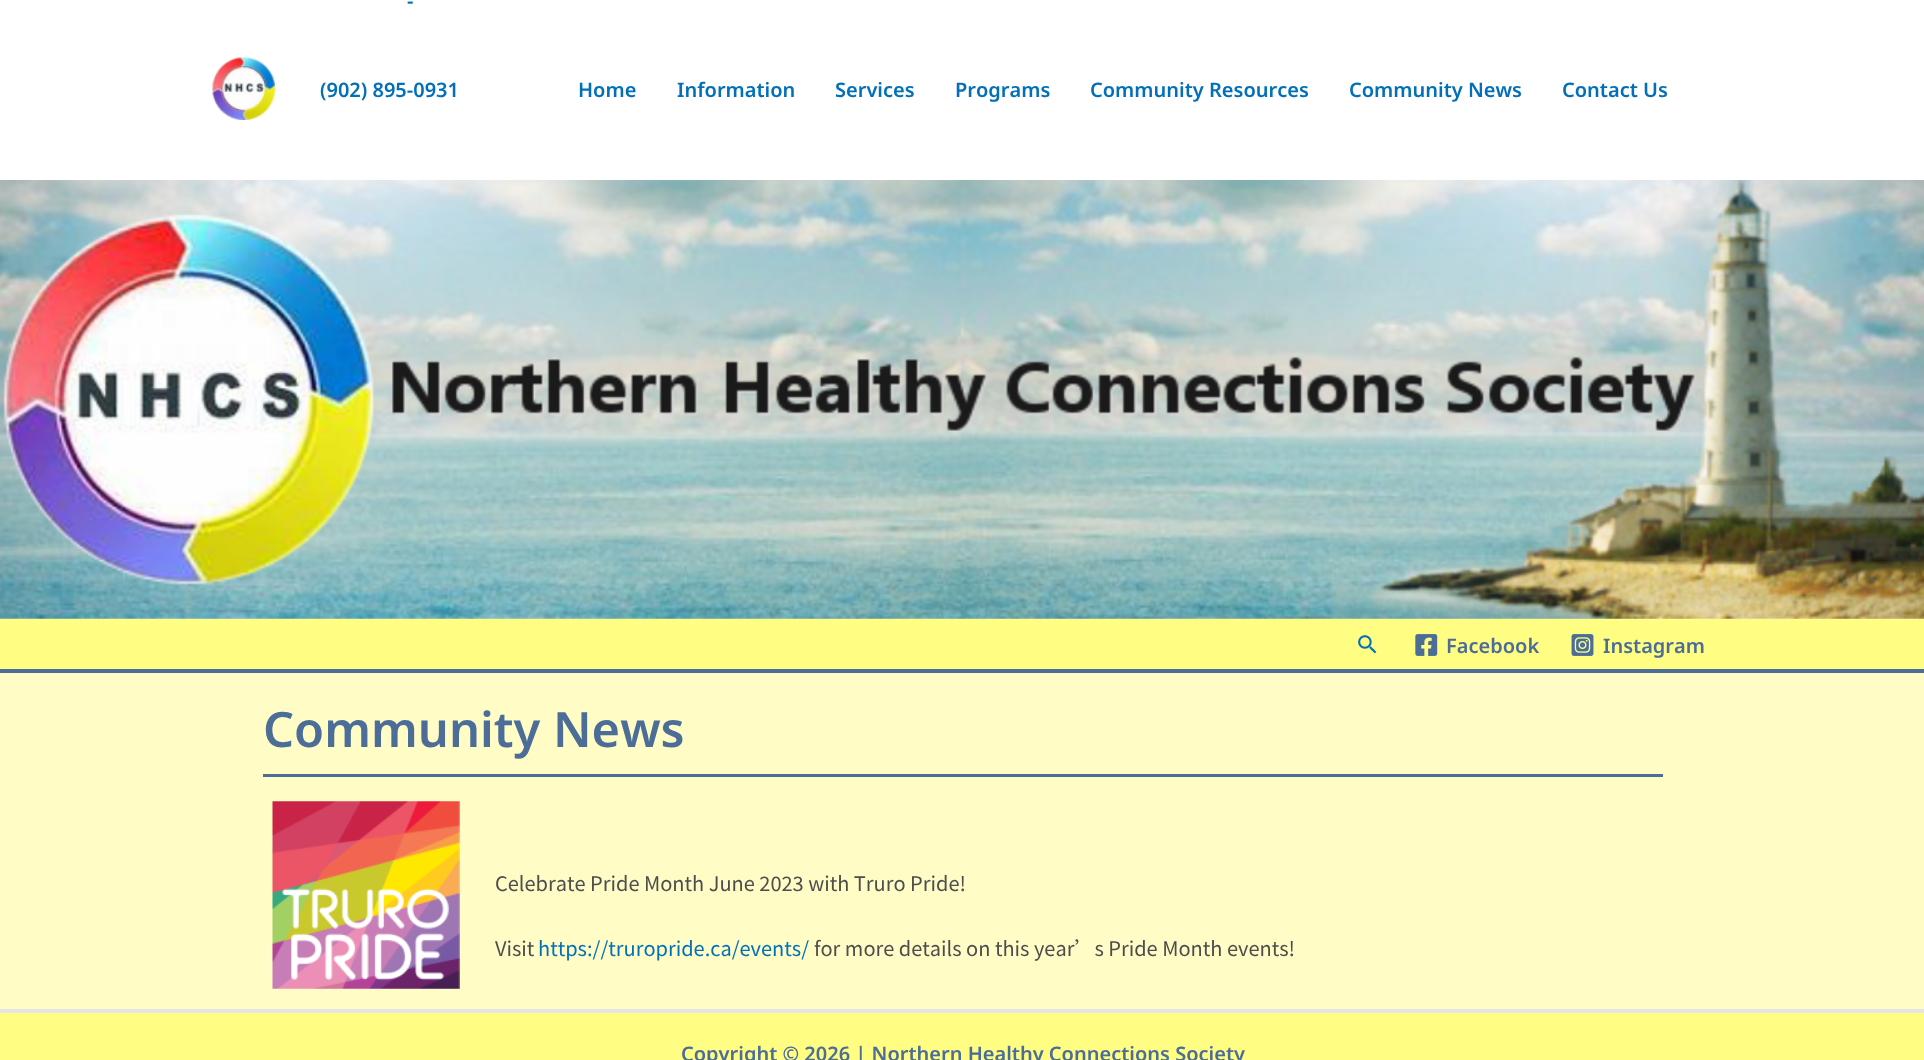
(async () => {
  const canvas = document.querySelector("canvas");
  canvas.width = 1924;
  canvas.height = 1060;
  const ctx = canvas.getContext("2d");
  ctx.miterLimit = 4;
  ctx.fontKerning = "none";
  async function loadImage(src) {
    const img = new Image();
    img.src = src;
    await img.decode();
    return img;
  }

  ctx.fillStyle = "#fffcc6";
  ctx.fillRect(0, 0, 1924, 1060);
  ctx.fillStyle = "#ffffff";
  ctx.fillRect(0, 0, 1924, 180);
  ctx.drawImage(await loadImage("img/1.png"), 212, 57, 63, 63);
  ctx.drawImage(await loadImage("img/2.png"), 0, 180, 1924, 439);
  ctx.fillStyle = "#fffd82";
  ctx.fillRect(0, 619, 1924, 50);
  ctx.fillStyle = "#4b6d98";
  ctx.fillRect(0, 669, 1924, 4);
  ctx.drawImage(await loadImage("img/3.png"), 1358, 635, 19, 19);
  ctx.drawImage(await loadImage("img/4.png"), 1415, 634, 23, 22);
  ctx.drawImage(await loadImage("img/5.png"), 1571, 634, 23, 22);
  ctx.fillRect(263, 774, 1400, 3);
  ctx.drawImage(await loadImage("img/6.png"), 272, 801, 188, 188);
  ctx.fillStyle = "#fffd82";
  ctx.fillRect(0, 1013, 1924, 47);
  ctx.fillStyle = "#e5e5e5";
  ctx.fillRect(0, 1009, 1924, 4);
  ctx.font = "600 20px Noto Sans";
  ctx.fillStyle = "#0170b9";
  for (const [text, x, y] of [
    ["-", 407, 8],
    ["(902) 895-0931", 320, 97],
    ["Home", 578, 97],
    ["Information", 677, 97],
    ["Services", 835, 97],
    ["Programs", 955, 97],
    ["Community Resources", 1090, 97],
    ["Community News", 1349, 97],
    ["Contact Us", 1562, 97],
  ]) {
    ctx.fillText(text, x, y);
  }
  ctx.fillStyle = "#4b6d98";
  ctx.fillText("Facebook", 1446, 653);
  ctx.fillText("Instagram", 1603, 653);
  ctx.font = "600 48.75px Noto Sans";
  ctx.fillText("Community News", 263, 747);
  ctx.font = "20px Noto Sans SC";
  ctx.fillStyle = "#4d4d4d";
  ctx.fillText("Celebrate Pride Month June 2023 with Truro Pride!", 495, 891);
  ctx.fillText("Visit", 495, 956);
  ctx.fillStyle = "#0170b9";
  ctx.fillText("https://truropride.ca/events/", 538, 956);
  ctx.fillStyle = "#4d4d4d";
  ctx.fillText("for more details on this year’s Pride Month events!", 814, 956);
  ctx.font = "600 20px Noto Sans";
  ctx.fillStyle = "#4b6d98";
  ctx.fillText("Copyright © 2026 | Northern Healthy Connections Society", 681, 1061);
})();
